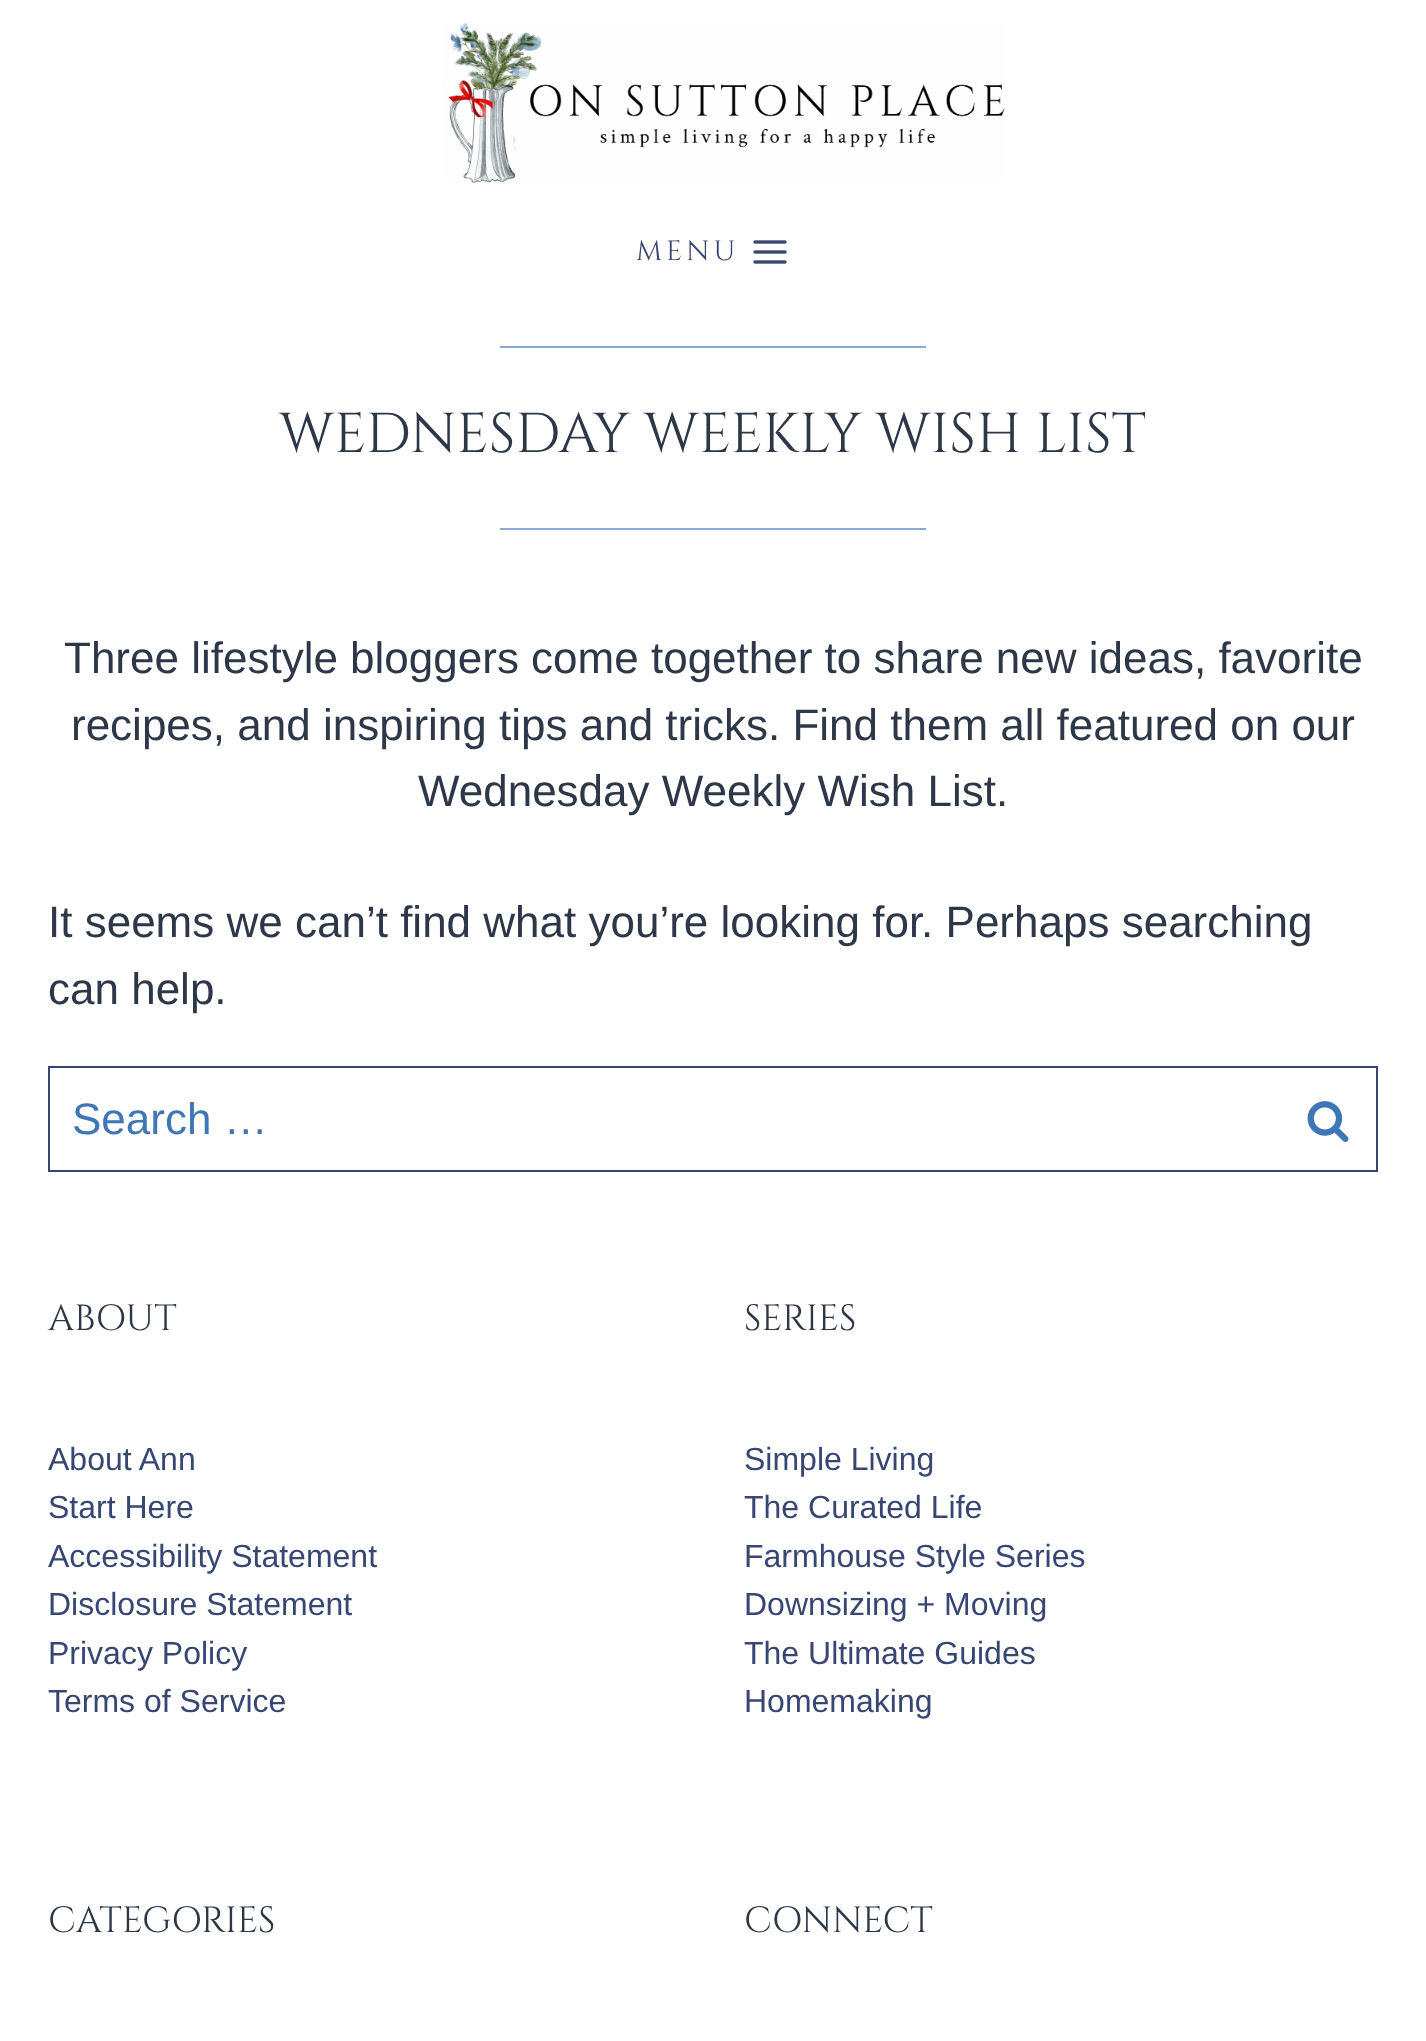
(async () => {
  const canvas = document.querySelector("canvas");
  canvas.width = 1426;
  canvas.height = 2041;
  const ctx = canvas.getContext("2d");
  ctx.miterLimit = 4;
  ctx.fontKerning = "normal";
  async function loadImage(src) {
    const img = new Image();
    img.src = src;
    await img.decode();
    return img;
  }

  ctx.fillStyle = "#ffffff";
  ctx.fillRect(0, 0, 1426, 2041);
  ctx.drawImage(await loadImage("img/1.png"), 443, 23, 562, 160);
  ctx.drawImage(await loadImage("img/2.png"), 753, 240, 34, 24);
  ctx.fillStyle = "#86acd6";
  ctx.fillRect(500, 346, 426, 2);
  ctx.fillRect(500, 528, 426, 2);
  ctx.strokeStyle = "#374672";
  ctx.lineWidth = 2;
  ctx.strokeRect(49, 1067, 1328, 104);
  ctx.drawImage(await loadImage("img/3.png"), 1307, 1101, 42, 41);
  ctx.letterSpacing = "4px";
  ctx.font = "28px Cinzel";
  ctx.fillStyle = "#374672";
  ctx.fillText("MENU", 636, 260);
  ctx.letterSpacing = "0px";
  ctx.font = "56px Cinzel";
  ctx.fillStyle = "#2d3748";
  ctx.fillText("WEDNESDAY WEEKLY WISH LIST", 279, 452);
  ctx.font = "44px Liberation Sans";
  for (const [text, x, y] of [
    ["Three lifestyle bloggers come together to share new ideas, favorite", 64, 673],
    ["recipes, and inspiring tips and tricks. Find them all featured on our", 71, 740],
    ["Wednesday Weekly Wish List.", 418, 806],
    ["It seems we can’t find what you’re looking for. Perhaps searching", 48, 937],
    ["can help.", 48, 1004],
  ]) {
    ctx.fillText(text, x, y);
  }
  ctx.fillStyle = "#3e76b6";
  ctx.fillText("Search …", 72, 1134);
  ctx.font = "36.5px Cinzel";
  ctx.fillStyle = "#2d3748";
  ctx.fillText("ABOUT", 48, 1330);
  ctx.font = "32px Liberation Sans";
  ctx.fillStyle = "#374672";
  for (const [text, x, y] of [
    ["About Ann", 48, 1470],
    ["Start Here", 48, 1518],
    ["Accessibility Statement", 48, 1567],
    ["Disclosure Statement", 48, 1615],
    ["Privacy Policy", 48, 1664],
    ["Terms of Service", 48, 1712],
  ]) {
    ctx.fillText(text, x, y);
  }
  ctx.font = "36.5px Cinzel";
  ctx.fillStyle = "#2d3748";
  ctx.fillText("SERIES", 744, 1330);
  ctx.font = "32px Liberation Sans";
  ctx.fillStyle = "#374672";
  for (const [text, x, y] of [
    ["Simple Living", 744, 1470],
    ["The Curated Life", 744, 1518],
    ["Farmhouse Style Series", 744, 1567],
    ["Downsizing + Moving", 744, 1615],
    ["The Ultimate Guides", 744, 1664],
    ["Homemaking", 744, 1712],
  ]) {
    ctx.fillText(text, x, y);
  }
  ctx.font = "36.5px Cinzel";
  ctx.fillStyle = "#2d3748";
  ctx.fillText("CATEGORIES", 48, 1932);
  ctx.fillText("CONNECT", 744, 1932);
})();
